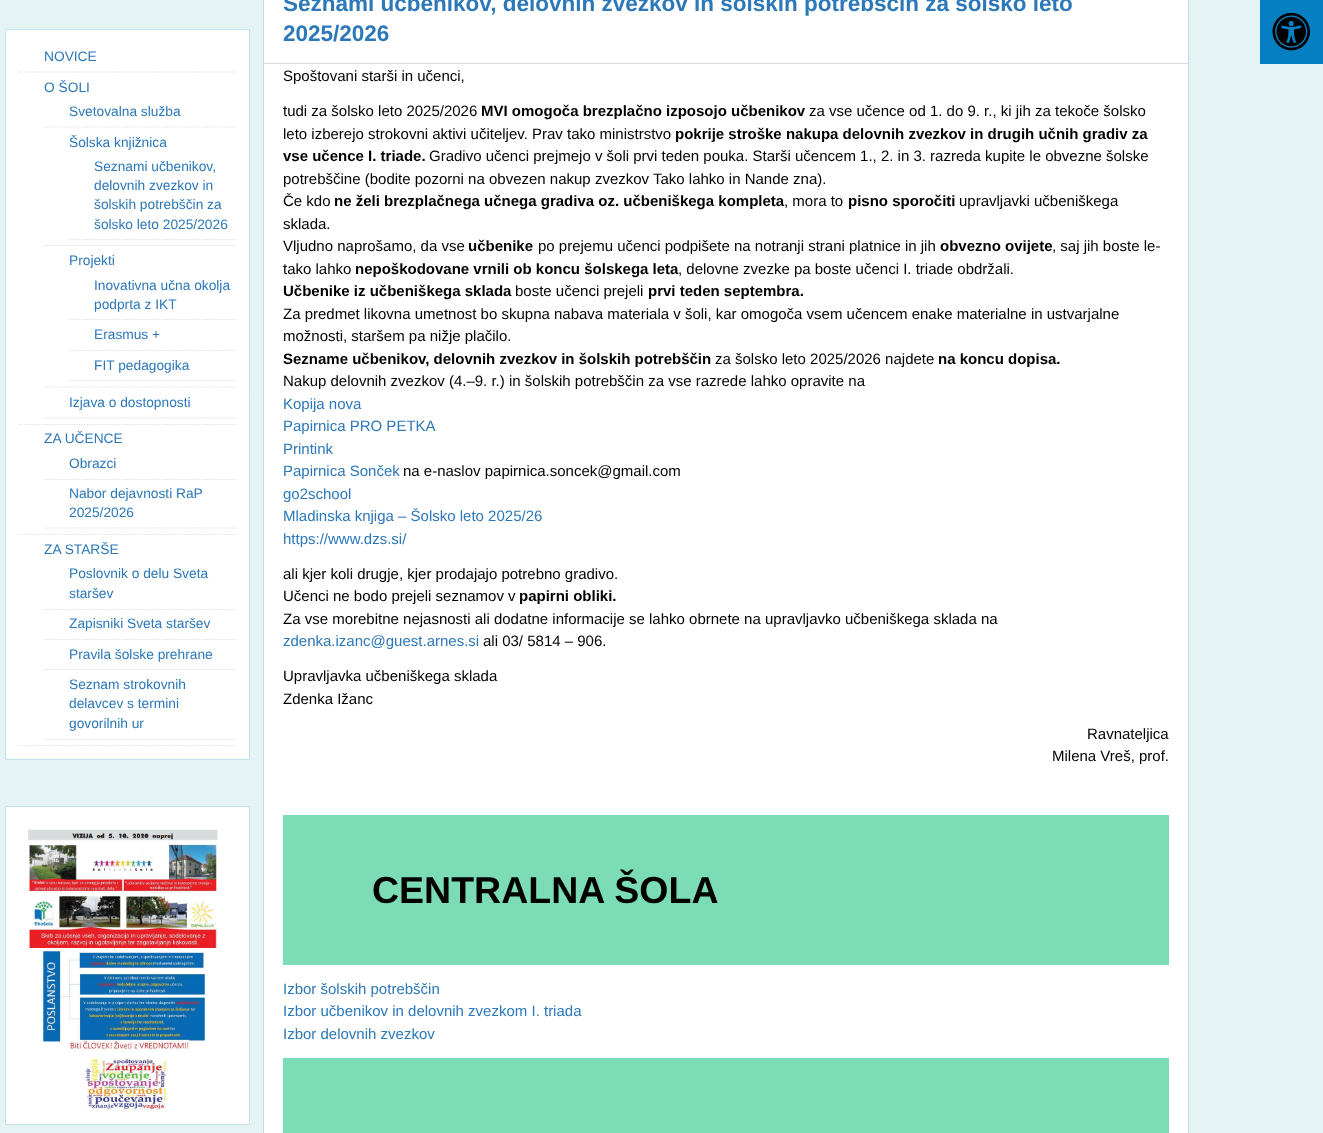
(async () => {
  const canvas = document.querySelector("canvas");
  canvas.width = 1323;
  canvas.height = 1133;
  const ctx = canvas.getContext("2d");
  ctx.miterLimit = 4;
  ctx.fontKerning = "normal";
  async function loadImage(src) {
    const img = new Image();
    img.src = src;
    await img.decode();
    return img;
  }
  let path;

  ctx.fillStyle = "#e6f3f5";
  ctx.fillRect(0, 0, 1323, 1133);
  ctx.fillStyle = "#ffffff";
  ctx.beginPath();
  ctx.rect(5.5, 29.5, 244, 730);
  ctx.fill();
  ctx.strokeStyle = "#bfe3eb";
  ctx.stroke();
  path = new Path2D("M19 72H236");
  ctx.strokeStyle = "#dddddd";
  ctx.lineWidth = 1.2;
  ctx.setLineDash([1.25, 1.25]);
  ctx.stroke(path);
  path = new Path2D("M19 424.5H236");
  ctx.stroke(path);
  path = new Path2D("M44 127H236");
  ctx.stroke(path);
  path = new Path2D("M44 245.5H236");
  ctx.stroke(path);
  path = new Path2D("M69 239.5H236");
  ctx.stroke(path);
  path = new Path2D("M44 387H236");
  ctx.stroke(path);
  path = new Path2D("M69 319.5H236");
  ctx.stroke(path);
  path = new Path2D("M69 350.5H236");
  ctx.stroke(path);
  path = new Path2D("M69 380.5H236");
  ctx.stroke(path);
  path = new Path2D("M44 418H236");
  ctx.stroke(path);
  path = new Path2D("M19 534.5H236");
  ctx.stroke(path);
  path = new Path2D("M44 479.5H236");
  ctx.stroke(path);
  path = new Path2D("M44 528H236");
  ctx.stroke(path);
  path = new Path2D("M19 745.5H236");
  ctx.stroke(path);
  path = new Path2D("M44 609.5H236");
  ctx.stroke(path);
  path = new Path2D("M44 639.5H236");
  ctx.stroke(path);
  path = new Path2D("M44 669.5H236");
  ctx.stroke(path);
  path = new Path2D("M44 739.5H236");
  ctx.stroke(path);
  ctx.beginPath();
  ctx.rect(5.5, 806.5, 244, 318);
  ctx.fill();
  ctx.strokeStyle = "#bfe3eb";
  ctx.lineWidth = 1;
  ctx.setLineDash([]);
  ctx.stroke();
  ctx.drawImage(await loadImage("img/1.png"), 28, 829, 190, 282);
  ctx.beginPath();
  ctx.rect(263.5, -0.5, 925, 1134);
  ctx.fill();
  ctx.strokeStyle = "#bddbe6";
  ctx.stroke();
  for (const [x, y, w, h, color] of [
    [264, 63, 924, 1, "#dddddd"],
    [283, 815, 886, 150, "#7bdcb5"],
    [283, 1058, 886, 75, "#7bdcb5"],
    [1260, 0, 63, 64, "#0780c3"],
  ]) {
    ctx.fillStyle = color;
    ctx.fillRect(x, y, w, h);
  }
  ctx.drawImage(await loadImage("img/2.png"), 1272, 12, 38, 39);
  ctx.font = "13.75px Liberation Sans";
  ctx.fillStyle = "#2c78b9";
  for (const [text, x, y] of [
    ["NOVICE", 44, 61],
    ["O ŠOLI", 44, 92],
    ["Svetovalna služba", 69, 116],
    ["Šolska knjižnica", 69, 147],
    ["Seznami učbenikov,", 94, 171],
    ["delovnih zvezkov in", 94, 190],
    ["šolskih potrebščin za", 94, 209],
    ["šolsko leto 2025/2026", 94, 229],
    ["Projekti", 69, 265],
    ["Inovativna učna okolja", 94, 290],
    ["podprta z IKT", 94, 309],
    ["Erasmus +", 94, 339],
    ["FIT pedagogika", 94, 370],
    ["Izjava o dostopnosti", 69, 407],
    ["ZA UČENCE", 44, 443],
    ["Obrazci", 69, 468],
    ["Nabor dejavnosti RaP", 69, 498],
    ["2025/2026", 69, 517],
    ["ZA STARŠE", 44, 554],
    ["Poslovnik o delu Sveta", 69, 578],
    ["staršev", 69, 598],
    ["Zapisniki Sveta staršev", 69, 628],
    ["Pravila šolske prehrane", 69, 659],
    ["Seznam strokovnih", 69, 689],
    ["delavcev s termini", 69, 708],
    ["govorilnih ur", 69, 728],
  ]) {
    ctx.fillText(text, x, y);
  }
  ctx.font = "bold 22.5px Liberation Sans";
  ctx.fillText("Seznami učbenikov, delovnih zvezkov in šolskih potrebščin za šolsko leto", 283, 11);
  ctx.fillText("2025/2026", 283, 41);
  ctx.font = "15px Liberation Sans";
  ctx.fillStyle = "#000000";
  ctx.fillText("Spoštovani starši in učenci,", 283, 81);
  ctx.fillText("tudi za šolsko leto 2025/2026", 283, 116);
  ctx.font = "bold 15px Liberation Sans";
  ctx.fillText("MVI omogoča brezplačno izposojo učbenikov", 481, 116);
  ctx.font = "15px Liberation Sans";
  ctx.fillText("za vse učence od 1. do 9. r., ki jih za tekoče šolsko", 809, 116);
  ctx.fillText("leto izberejo strokovni aktivi učiteljev. Prav tako ministrstvo", 283, 139);
  ctx.font = "bold 15px Liberation Sans";
  ctx.fillText("pokrije stroške nakupa delovnih zvezkov in drugih učnih gradiv za", 675, 139);
  ctx.fillText("vse učence I. triade.", 283, 161);
  ctx.font = "15px Liberation Sans";
  for (const [text, x, y] of [
    ["Gradivo učenci prejmejo v šoli prvi teden pouka. Starši učencem 1., 2. in 3. razreda kupite le obvezne šolske", 429, 161],
    ["potrebščine (bodite pozorni na obvezen nakup zvezkov Tako lahko in Nande zna).", 283, 184],
    ["Če kdo", 283, 206],
  ]) {
    ctx.fillText(text, x, y);
  }
  ctx.font = "bold 15px Liberation Sans";
  ctx.fillText("ne želi brezplačnega učnega gradiva oz. učbeniškega kompleta", 334, 206);
  ctx.font = "15px Liberation Sans";
  ctx.fillText(", mora to", 784, 206);
  ctx.font = "bold 15px Liberation Sans";
  ctx.fillText("pisno sporočiti", 848, 206);
  ctx.font = "15px Liberation Sans";
  for (const [text, x, y] of [
    ["upravljavki učbeniškega", 959, 206],
    ["sklada.", 283, 229],
    ["Vljudno naprošamo, da vse", 283, 251],
  ]) {
    ctx.fillText(text, x, y);
  }
  ctx.font = "bold 15px Liberation Sans";
  ctx.fillText("učbenike", 468, 251);
  ctx.font = "15px Liberation Sans";
  ctx.fillText("po prejemu učenci podpišete na notranji strani platnice in jih", 538, 251);
  ctx.font = "bold 15px Liberation Sans";
  ctx.fillText("obvezno ovijete", 940, 251);
  ctx.font = "15px Liberation Sans";
  ctx.fillText(", saj jih boste le-", 1052, 251);
  ctx.fillText("tako lahko", 283, 274);
  ctx.font = "bold 15px Liberation Sans";
  ctx.fillText("nepoškodovane vrnili ob koncu šolskega leta", 355, 274);
  ctx.font = "15px Liberation Sans";
  ctx.fillText(", delovne zvezke pa boste učenci I. triade obdržali.", 678, 274);
  ctx.font = "bold 15px Liberation Sans";
  ctx.fillText("Učbenike iz učbeniškega sklada", 283, 296);
  ctx.font = "15px Liberation Sans";
  ctx.fillText("boste učenci prejeli", 515, 296);
  ctx.font = "bold 15px Liberation Sans";
  ctx.fillText("prvi teden septembra.", 648, 296);
  ctx.font = "15px Liberation Sans";
  ctx.fillText("Za predmet likovna umetnost bo skupna nabava materiala v šoli, kar omogoča vsem učencem enake materialne in ustvarjalne", 283, 319);
  ctx.fillText("možnosti, staršem pa nižje plačilo.", 283, 341);
  ctx.font = "bold 15px Liberation Sans";
  ctx.fillText("Sezname učbenikov, delovnih zvezkov in šolskih potrebščin", 283, 364);
  ctx.font = "15px Liberation Sans";
  ctx.fillText("za šolsko leto 2025/2026 najdete", 715, 364);
  ctx.font = "bold 15px Liberation Sans";
  ctx.fillText("na koncu dopisa.", 938, 364);
  ctx.font = "15px Liberation Sans";
  ctx.fillText("Nakup delovnih zvezkov (4.–9. r.) in šolskih potrebščin za vse razrede lahko opravite na", 283, 386);
  ctx.fillStyle = "#2c78b9";
  for (const [text, x, y] of [
    ["Kopija nova", 283, 409],
    ["Papirnica PRO PETKA", 283, 431],
    ["Printink", 283, 454],
    ["Papirnica Sonček", 283, 476],
  ]) {
    ctx.fillText(text, x, y);
  }
  ctx.fillStyle = "#000000";
  ctx.fillText("na e-naslov papirnica.soncek@gmail.com", 403, 476);
  ctx.fillStyle = "#2c78b9";
  for (const [text, x, y] of [
    ["go2school", 283, 499],
    ["Mladinska knjiga – Šolsko leto 2025/26", 283, 521],
    ["https://www.dzs.si/", 283, 544],
  ]) {
    ctx.fillText(text, x, y);
  }
  ctx.fillStyle = "#000000";
  ctx.fillText("ali kjer koli drugje, kjer prodajajo potrebno gradivo.", 283, 579);
  ctx.fillText("Učenci ne bodo prejeli seznamov v", 283, 601);
  ctx.font = "bold 15px Liberation Sans";
  ctx.fillText("papirni obliki.", 519, 601);
  ctx.font = "15px Liberation Sans";
  ctx.fillText("Za vse morebitne nejasnosti ali dodatne informacije se lahko obrnete na upravljavko učbeniškega sklada na", 283, 624);
  ctx.fillStyle = "#2c78b9";
  ctx.fillText("zdenka.izanc@guest.arnes.si", 283, 646);
  ctx.fillStyle = "#000000";
  for (const [text, x, y] of [
    ["ali 03/ 5814 – 906.", 483, 646],
    ["Upravljavka učbeniškega sklada", 283, 681],
    ["Zdenka Ižanc", 283, 704],
    ["Ravnateljica", 1087, 739],
    ["Milena Vreš, prof.", 1052, 761],
  ]) {
    ctx.fillText(text, x, y);
  }
  ctx.font = "bold 37.5px Liberation Sans";
  ctx.fillText("CENTRALNA ŠOLA", 372, 903);
  ctx.font = "15px Liberation Sans";
  ctx.fillStyle = "#2c78b9";
  for (const [text, x, y] of [
    ["Izbor šolskih potrebščin", 283, 994],
    ["Izbor učbenikov in delovnih zvezkom I. triada", 283, 1016],
    ["Izbor delovnih zvezkov", 283, 1039],
  ]) {
    ctx.fillText(text, x, y);
  }
})();
